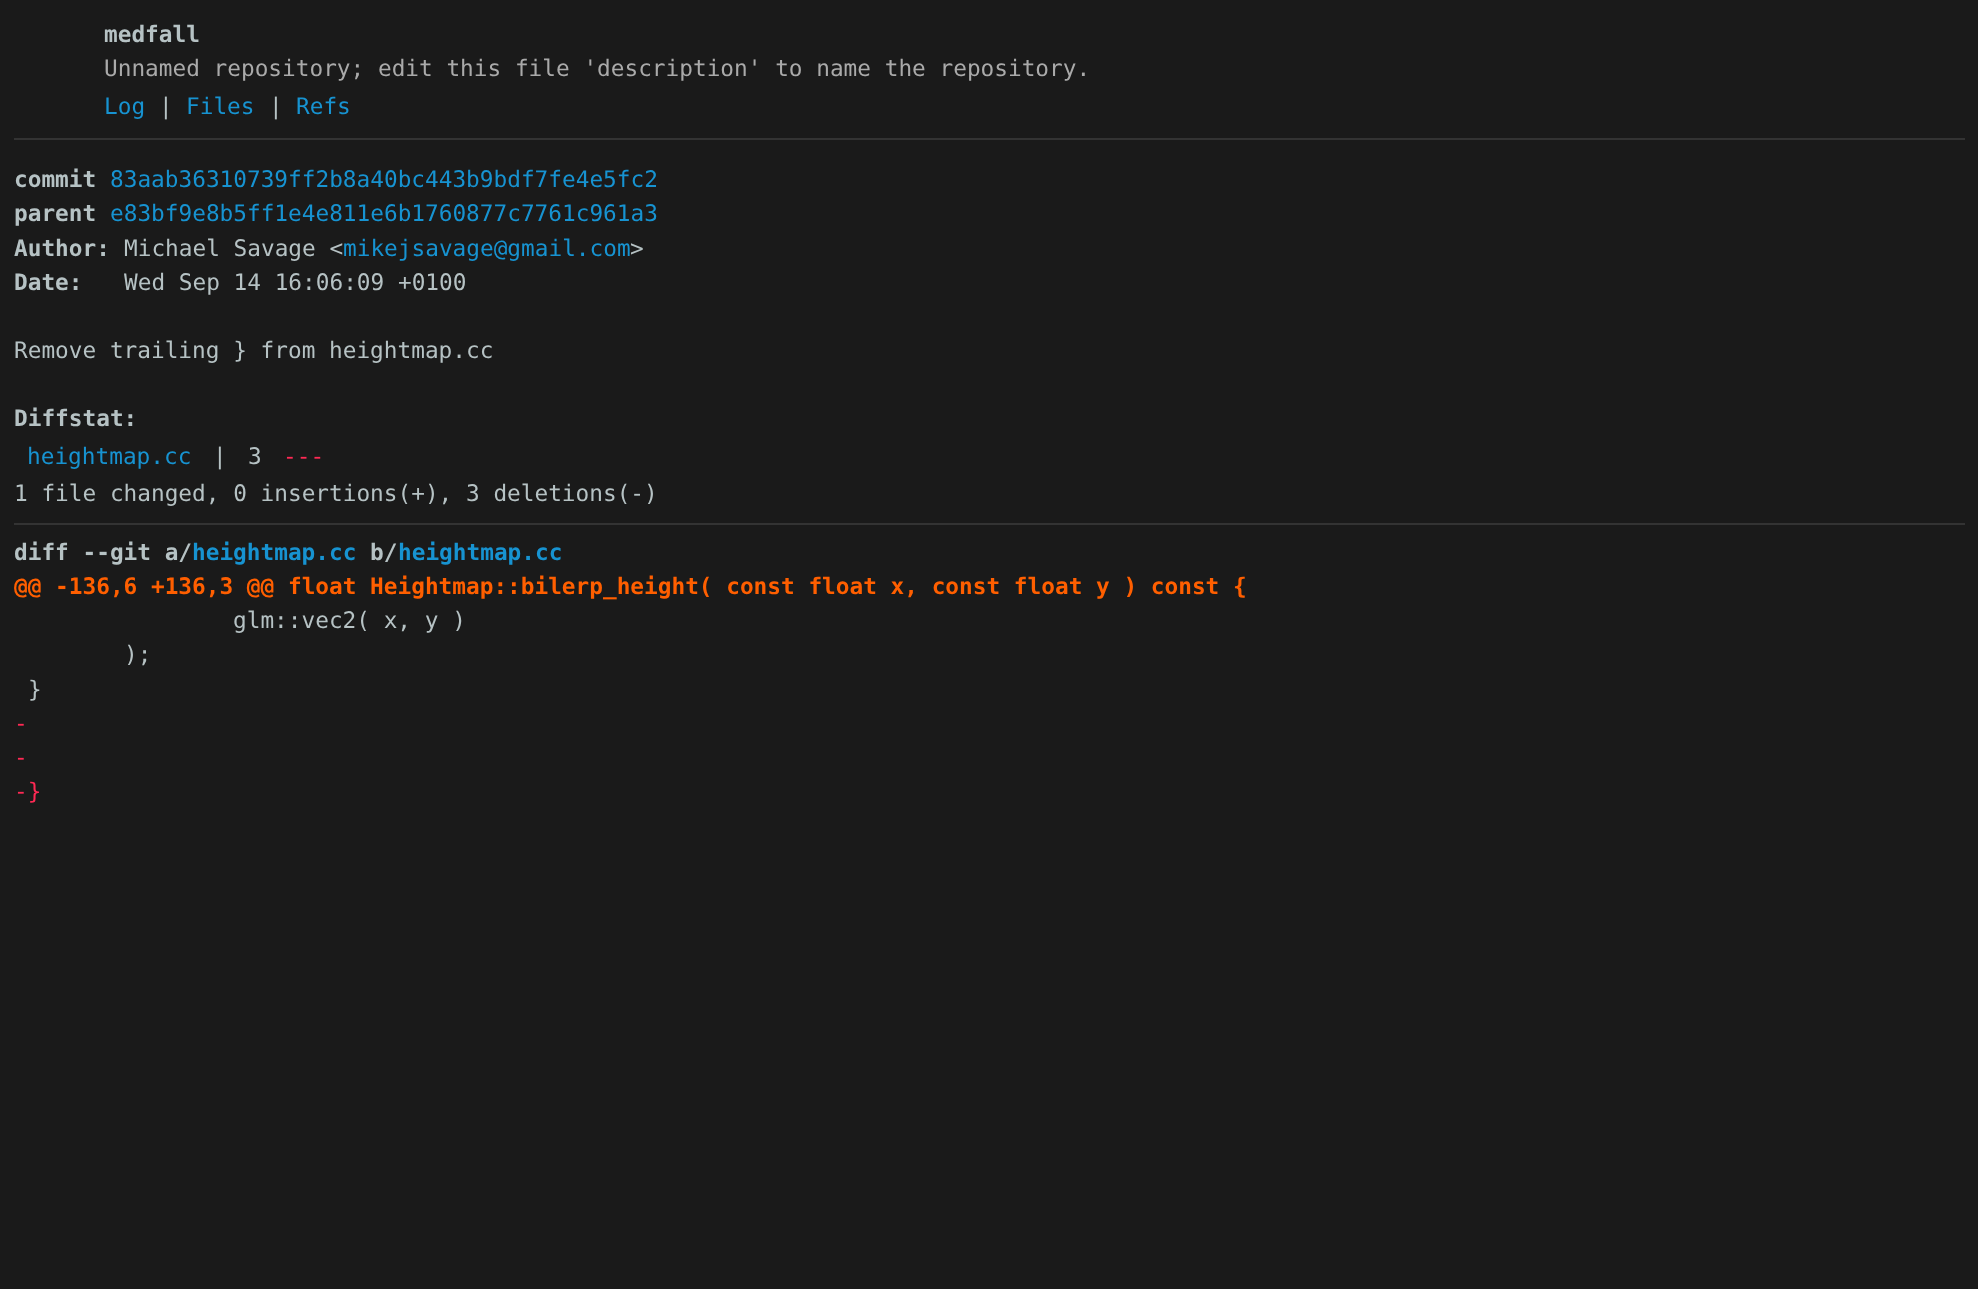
(async () => {
  const canvas = document.querySelector("canvas");
  canvas.width = 1978;
  canvas.height = 1289;
  const ctx = canvas.getContext("2d");
  ctx.miterLimit = 4;
  ctx.fontKerning = "normal";

  ctx.fillStyle = "#1a1a1a";
  ctx.fillRect(0, 0, 1978, 1289);
  ctx.fillStyle = "#333333";
  ctx.fillRect(14, 138, 1951, 2);
  ctx.fillRect(14, 523, 1951, 2);
  ctx.font = "bold 22.75px DejaVu Sans Mono";
  ctx.fillStyle = "#b6c2c4";
  ctx.fillText("medfall", 104, 42);
  ctx.font = "22.75px DejaVu Sans Mono";
  ctx.fillStyle = "#aaaaaa";
  ctx.fillText("Unnamed repository; edit this file 'description' to name the repository.", 104, 76);
  ctx.fillStyle = "#1793d1";
  ctx.fillText("Log", 104, 114);
  ctx.fillStyle = "#b6c2c4";
  ctx.fillText("|", 159, 114);
  ctx.fillStyle = "#1793d1";
  ctx.fillText("Files", 186, 114);
  ctx.fillStyle = "#b6c2c4";
  ctx.fillText("|", 269, 114);
  ctx.fillStyle = "#1793d1";
  ctx.fillText("Refs", 296, 114);
  ctx.font = "bold 22.75px DejaVu Sans Mono";
  ctx.fillStyle = "#b6c2c4";
  ctx.fillText("commit", 14, 187);
  ctx.font = "22.75px DejaVu Sans Mono";
  ctx.fillStyle = "#1793d1";
  ctx.fillText("83aab36310739ff2b8a40bc443b9bdf7fe4e5fc2", 110, 187);
  ctx.font = "bold 22.75px DejaVu Sans Mono";
  ctx.fillStyle = "#b6c2c4";
  ctx.fillText("parent", 14, 221);
  ctx.font = "22.75px DejaVu Sans Mono";
  ctx.fillStyle = "#1793d1";
  ctx.fillText("e83bf9e8b5ff1e4e811e6b1760877c7761c961a3", 110, 221);
  ctx.font = "bold 22.75px DejaVu Sans Mono";
  ctx.fillStyle = "#b6c2c4";
  ctx.fillText("Author:", 14, 256);
  ctx.font = "22.75px DejaVu Sans Mono";
  ctx.fillText("Michael Savage <", 124, 256);
  ctx.fillStyle = "#1793d1";
  ctx.fillText("mikejsavage@gmail.com", 343, 256);
  ctx.fillStyle = "#b6c2c4";
  ctx.fillText(">", 630, 256);
  ctx.font = "bold 22.75px DejaVu Sans Mono";
  ctx.fillText("Date:", 14, 290);
  ctx.font = "22.75px DejaVu Sans Mono";
  ctx.fillText("Wed Sep 14 16:06:09 +0100", 124, 290);
  ctx.fillText("Remove trailing } from heightmap.cc", 14, 358);
  ctx.font = "bold 22.75px DejaVu Sans Mono";
  ctx.fillText("Diffstat:", 14, 426);
  ctx.font = "22.75px DejaVu Sans Mono";
  ctx.fillStyle = "#1793d1";
  ctx.fillText("heightmap.cc", 27, 464);
  ctx.fillStyle = "#b6c2c4";
  ctx.fillText("|", 213, 464);
  ctx.fillText("3", 248, 464);
  ctx.fillStyle = "#ff2954";
  ctx.fillText("---", 283, 464);
  ctx.fillStyle = "#b6c2c4";
  ctx.fillText("1 file changed, 0 insertions(+), 3 deletions(-)", 14, 501);
  ctx.font = "bold 22.75px DejaVu Sans Mono";
  ctx.fillText("diff --git a/", 14, 560);
  ctx.fillStyle = "#1793d1";
  ctx.fillText("heightmap.cc", 192, 560);
  ctx.fillStyle = "#b6c2c4";
  ctx.fillText("b/", 370, 560);
  ctx.fillStyle = "#1793d1";
  ctx.fillText("heightmap.cc", 398, 560);
  ctx.fillStyle = "#ff5f00";
  ctx.fillText("@@ -136,6 +136,3 @@ float Heightmap::bilerp_height( const float x, const float y ) const {", 14, 594);
  ctx.font = "22.75px DejaVu Sans Mono";
  ctx.fillStyle = "#b6c2c4";
  for (const [text, x, y] of [
    ["glm::vec2( x, y )", 233, 628],
    [");", 124, 662],
    ["}", 28, 697],
  ]) {
    ctx.fillText(text, x, y);
  }
  ctx.fillStyle = "#ff2954";
  for (const [text, x, y] of [
    ["-", 14, 731],
    ["-", 14, 765],
    ["-}", 14, 799],
  ]) {
    ctx.fillText(text, x, y);
  }
})();
